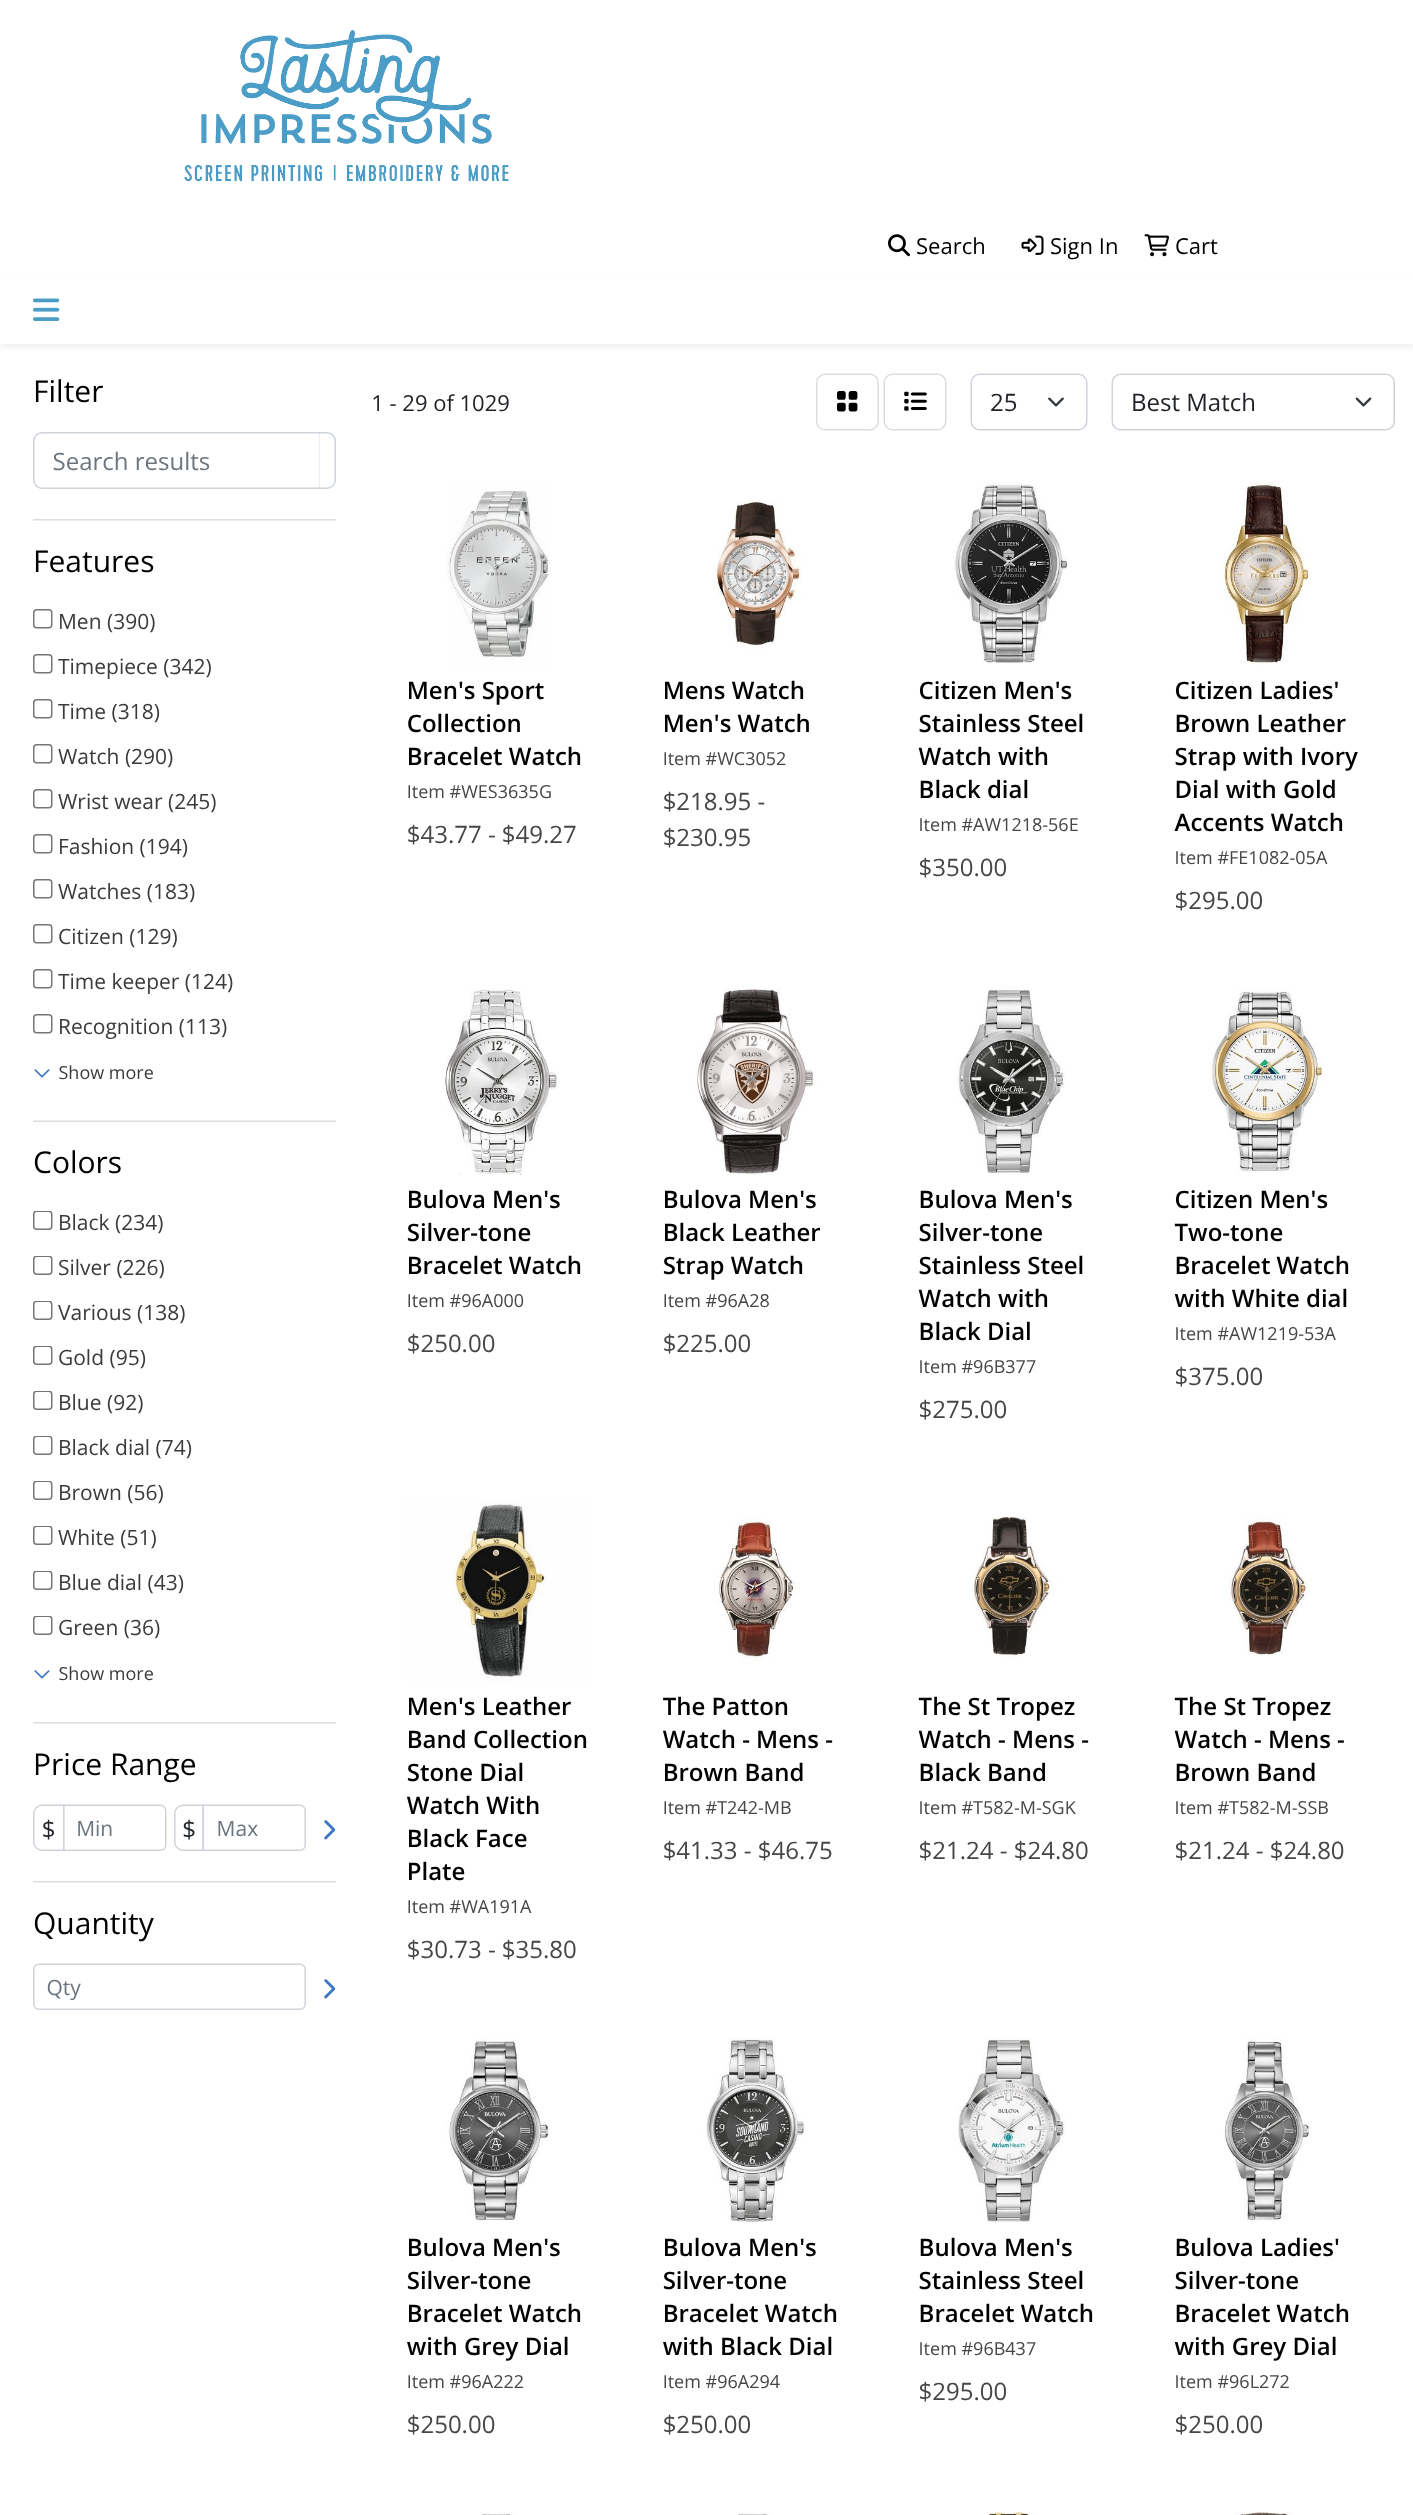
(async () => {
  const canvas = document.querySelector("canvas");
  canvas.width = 1413;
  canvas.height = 2515;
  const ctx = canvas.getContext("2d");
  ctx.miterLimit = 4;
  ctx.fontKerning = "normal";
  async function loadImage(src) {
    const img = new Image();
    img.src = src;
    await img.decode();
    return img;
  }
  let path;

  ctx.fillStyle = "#ffffff";
  ctx.fillRect(0, 0, 1413, 2515);
  ctx.drawImage(await loadImage("img/1.png"), 184, 30, 325, 152);
  ctx.drawImage(await loadImage("img/2.png"), 888, 234, 22, 23);
  ctx.drawImage(await loadImage("img/3.png"), 1021, 235, 23, 20);
  ctx.drawImage(await loadImage("img/4.png"), 1144, 234, 25, 23);
  ctx.save();
  path = new Path2D("M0 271H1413V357H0ZM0 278H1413V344H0Z");
  ctx.clip(path, "evenodd");
  ctx.fillStyle = "rgba(0, 0, 0, 0.07)";
  ctx.filter = "blur(3px)";
  ctx.beginPath();
  ctx.rect(0, 281, 1413, 66);
  ctx.fill();
  ctx.filter = "none";
  ctx.restore();
  ctx.drawImage(await loadImage("img/5.png"), 33, 298, 27, 23);
  ctx.drawImage(await loadImage("img/6.png"), 33, 373, 1362, 2142);
  ctx.font = "22px Open Sans";
  ctx.fillStyle = "#000000";
  for (const [text, x, y] of [
    ["Search", 916, 254],
    ["Sign In", 1050, 254],
    ["Cart", 1175, 254],
  ]) {
    ctx.fillText(text, x, y);
  }
})();
